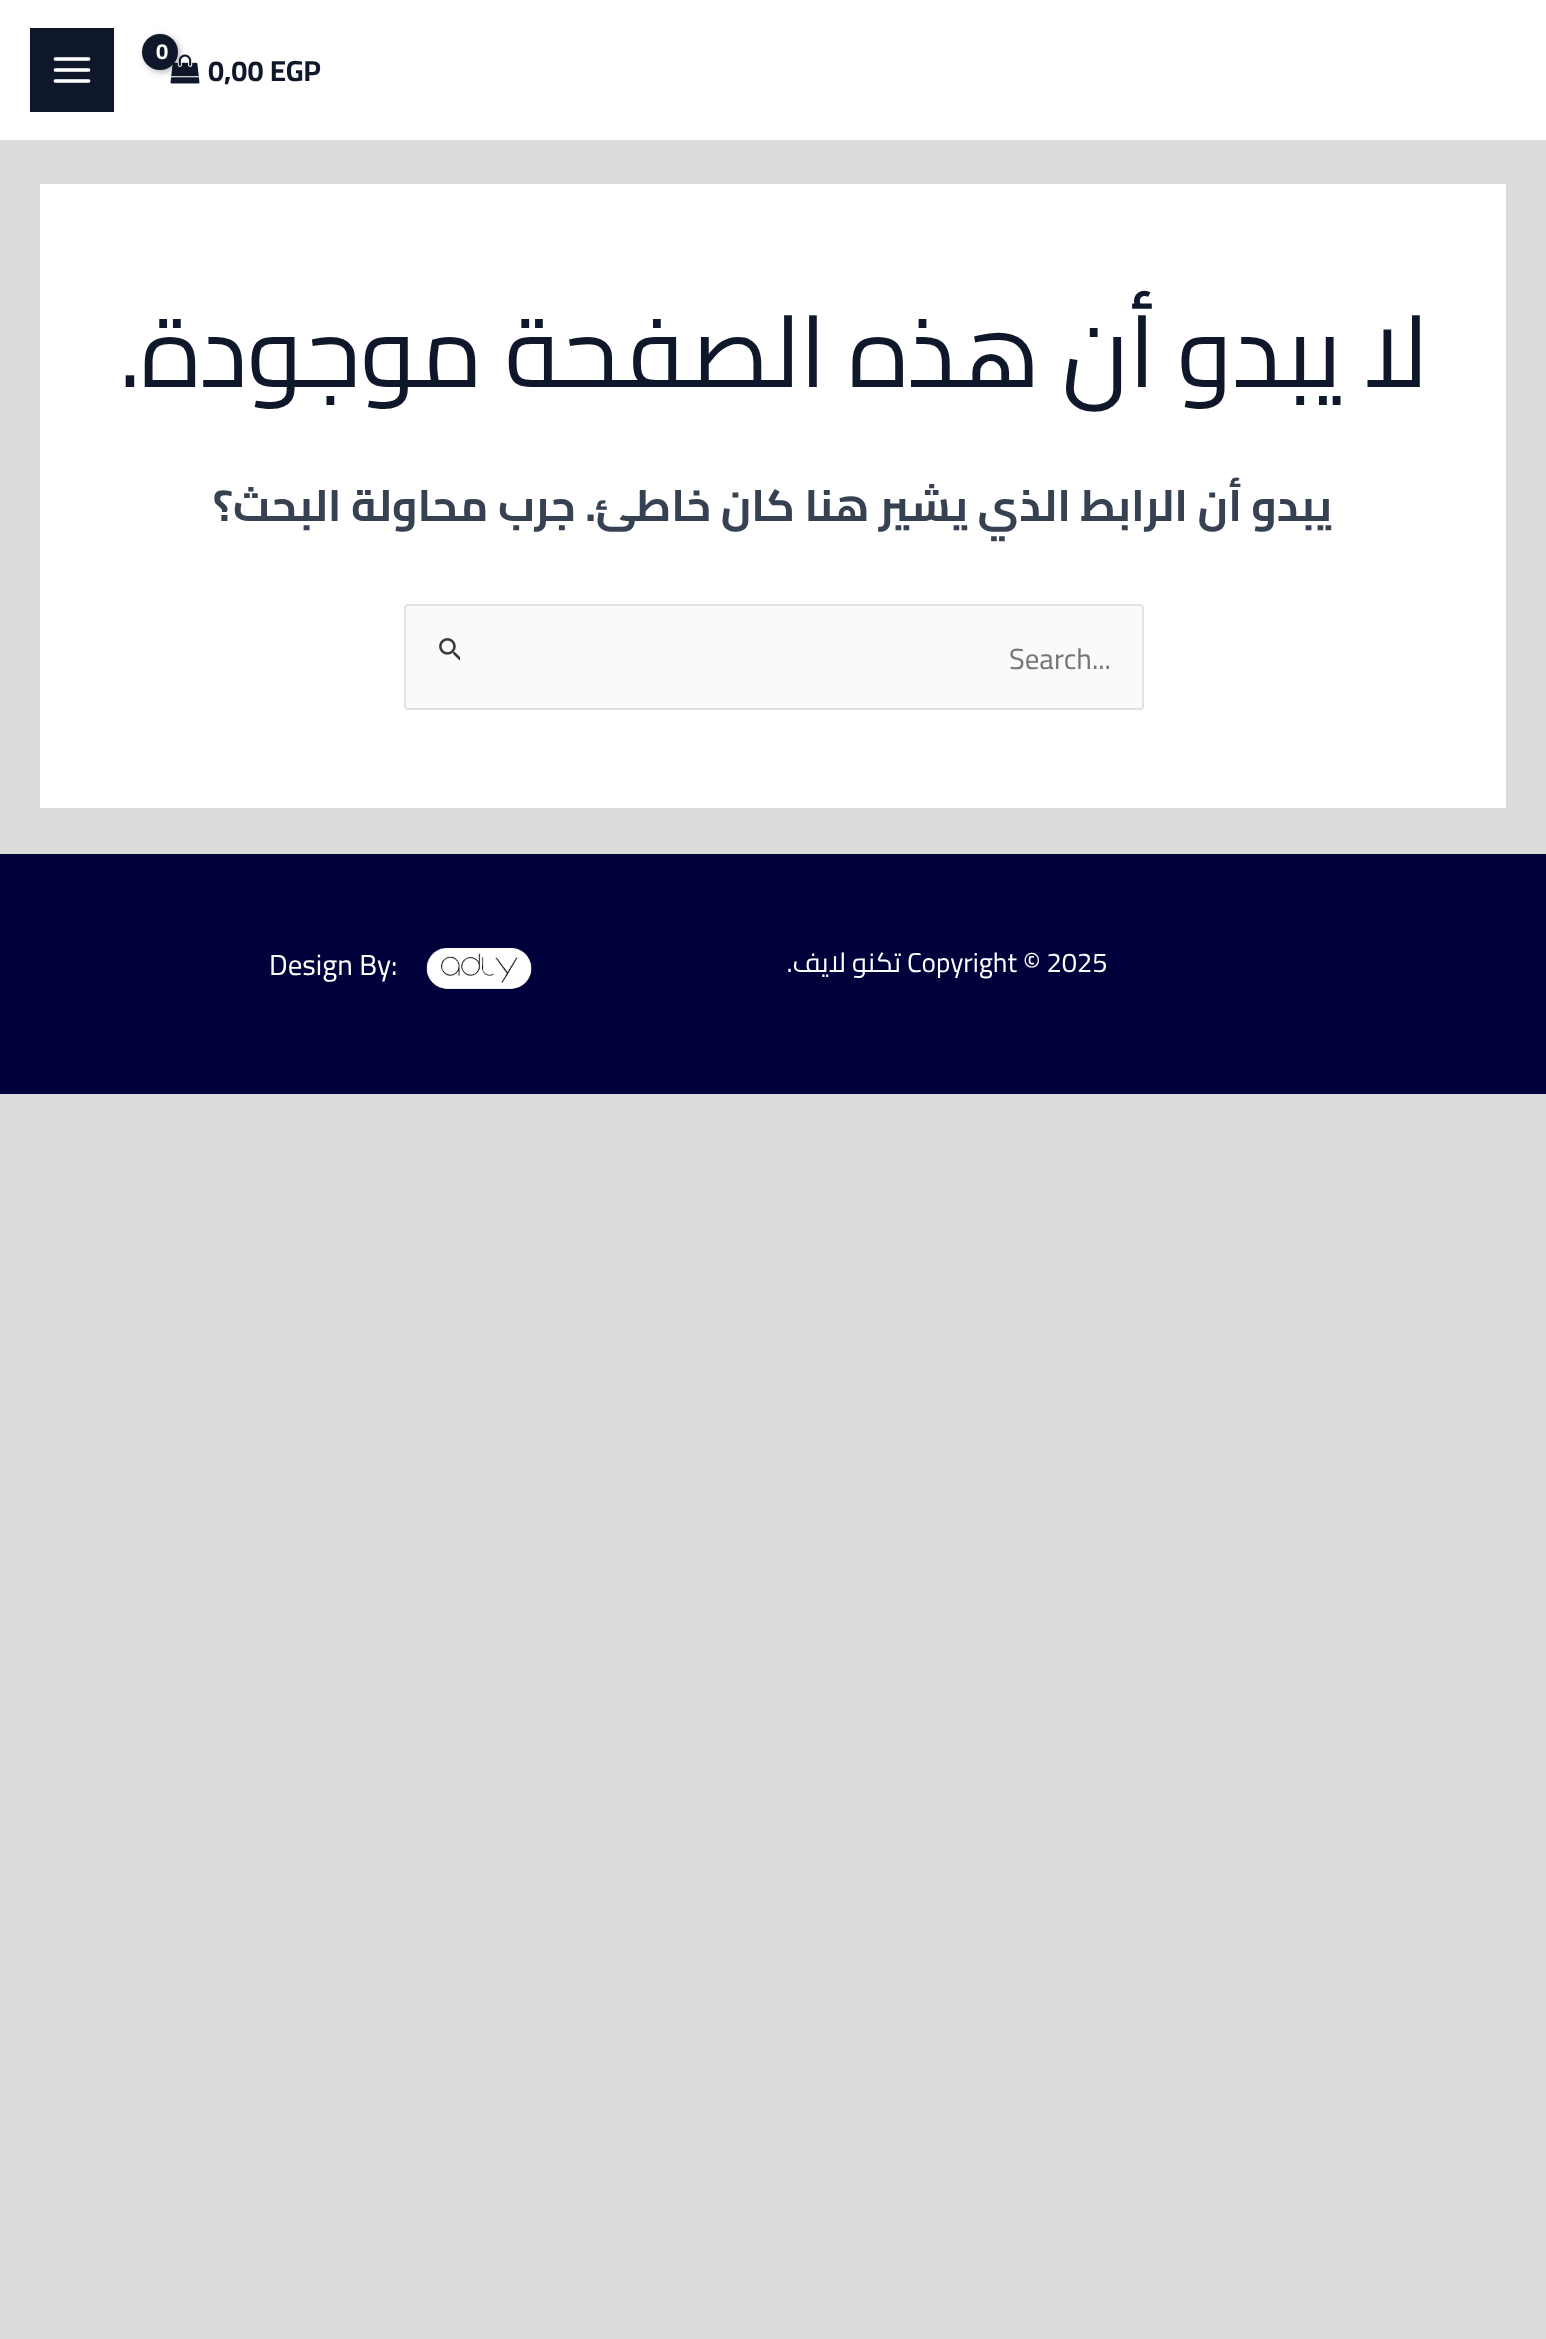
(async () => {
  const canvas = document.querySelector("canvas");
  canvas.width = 1546;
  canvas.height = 2339;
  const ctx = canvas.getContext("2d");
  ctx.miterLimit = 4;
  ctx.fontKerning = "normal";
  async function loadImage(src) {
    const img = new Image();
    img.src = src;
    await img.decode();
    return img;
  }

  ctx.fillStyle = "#dcdcdd";
  ctx.fillRect(0, 0, 1546, 2339);
  ctx.fillStyle = "#ffffff";
  ctx.fillRect(0, 0, 1546, 140);
  ctx.drawImage(await loadImage("img/1.png"), 170, 54, 30, 30);
  ctx.fillStyle = "rgba(0, 0, 0, 0.3)";
  ctx.filter = "blur(3px)";
  ctx.beginPath();
  ctx.roundRect(144, 36, 36, 36, 18);
  ctx.fill();
  ctx.filter = "none";
  ctx.fillStyle = "#0f172a";
  ctx.beginPath();
  ctx.arc(160, 52, 18, 0, Math.PI * 2);
  ctx.fill();
  ctx.fillRect(30, 28, 84, 84);
  ctx.drawImage(await loadImage("img/2.png"), 53, 57, 38, 26);
  ctx.fillStyle = "#ffffff";
  ctx.fillRect(40, 184, 1466, 624);
  ctx.fillStyle = "#fafafa";
  ctx.beginPath();
  ctx.roundRect(405, 605, 738, 104, 3);
  ctx.fill();
  ctx.strokeStyle = "#e2e2e2";
  ctx.lineWidth = 2;
  ctx.stroke();
  ctx.drawImage(await loadImage("img/3.png"), 439, 638, 21, 23);
  ctx.fillStyle = "#00013b";
  ctx.fillRect(0, 854, 1546, 240);
  ctx.drawImage(await loadImage("img/4.png"), 426, 948, 106, 42);
  ctx.letterSpacing = "-1px";
  ctx.font = "bold 22px Cairo";
  ctx.fillStyle = "#ffffff";
  ctx.fillText("0", 156, 59);
  ctx.letterSpacing = "0px";
  ctx.font = "bold 29px Cairo";
  ctx.fillStyle = "#0f172a";
  ctx.fillText("0,00 EGP", 208, 81);
  ctx.direction = "rtl";
  ctx.font = "100px Cairo";
  ctx.fillText("لا يبدو أن هذه الصفحة موجودة.", 1428, 387);
  ctx.font = "bold 43.75px Cairo";
  ctx.fillStyle = "#364151";
  ctx.fillText("يبدو أن الرابط الذي يشير هنا كان خاطئ. جرب محاولة البحث؟", 1332, 521);
  ctx.direction = "ltr";
  ctx.font = "29px Cairo";
  ctx.fillStyle = "#757575";
  ctx.fillText("Search...", 1009, 669);
  ctx.font = "27.25px Cairo";
  ctx.fillStyle = "#ffffff";
  ctx.fillText("Copyright © 2025", 907, 972);
  ctx.direction = "rtl";
  ctx.fillText("تكنو لايف.", 901, 972);
  ctx.direction = "ltr";
  ctx.font = "29px Cairo";
  ctx.fillText("Design By:", 269, 975);
})();
